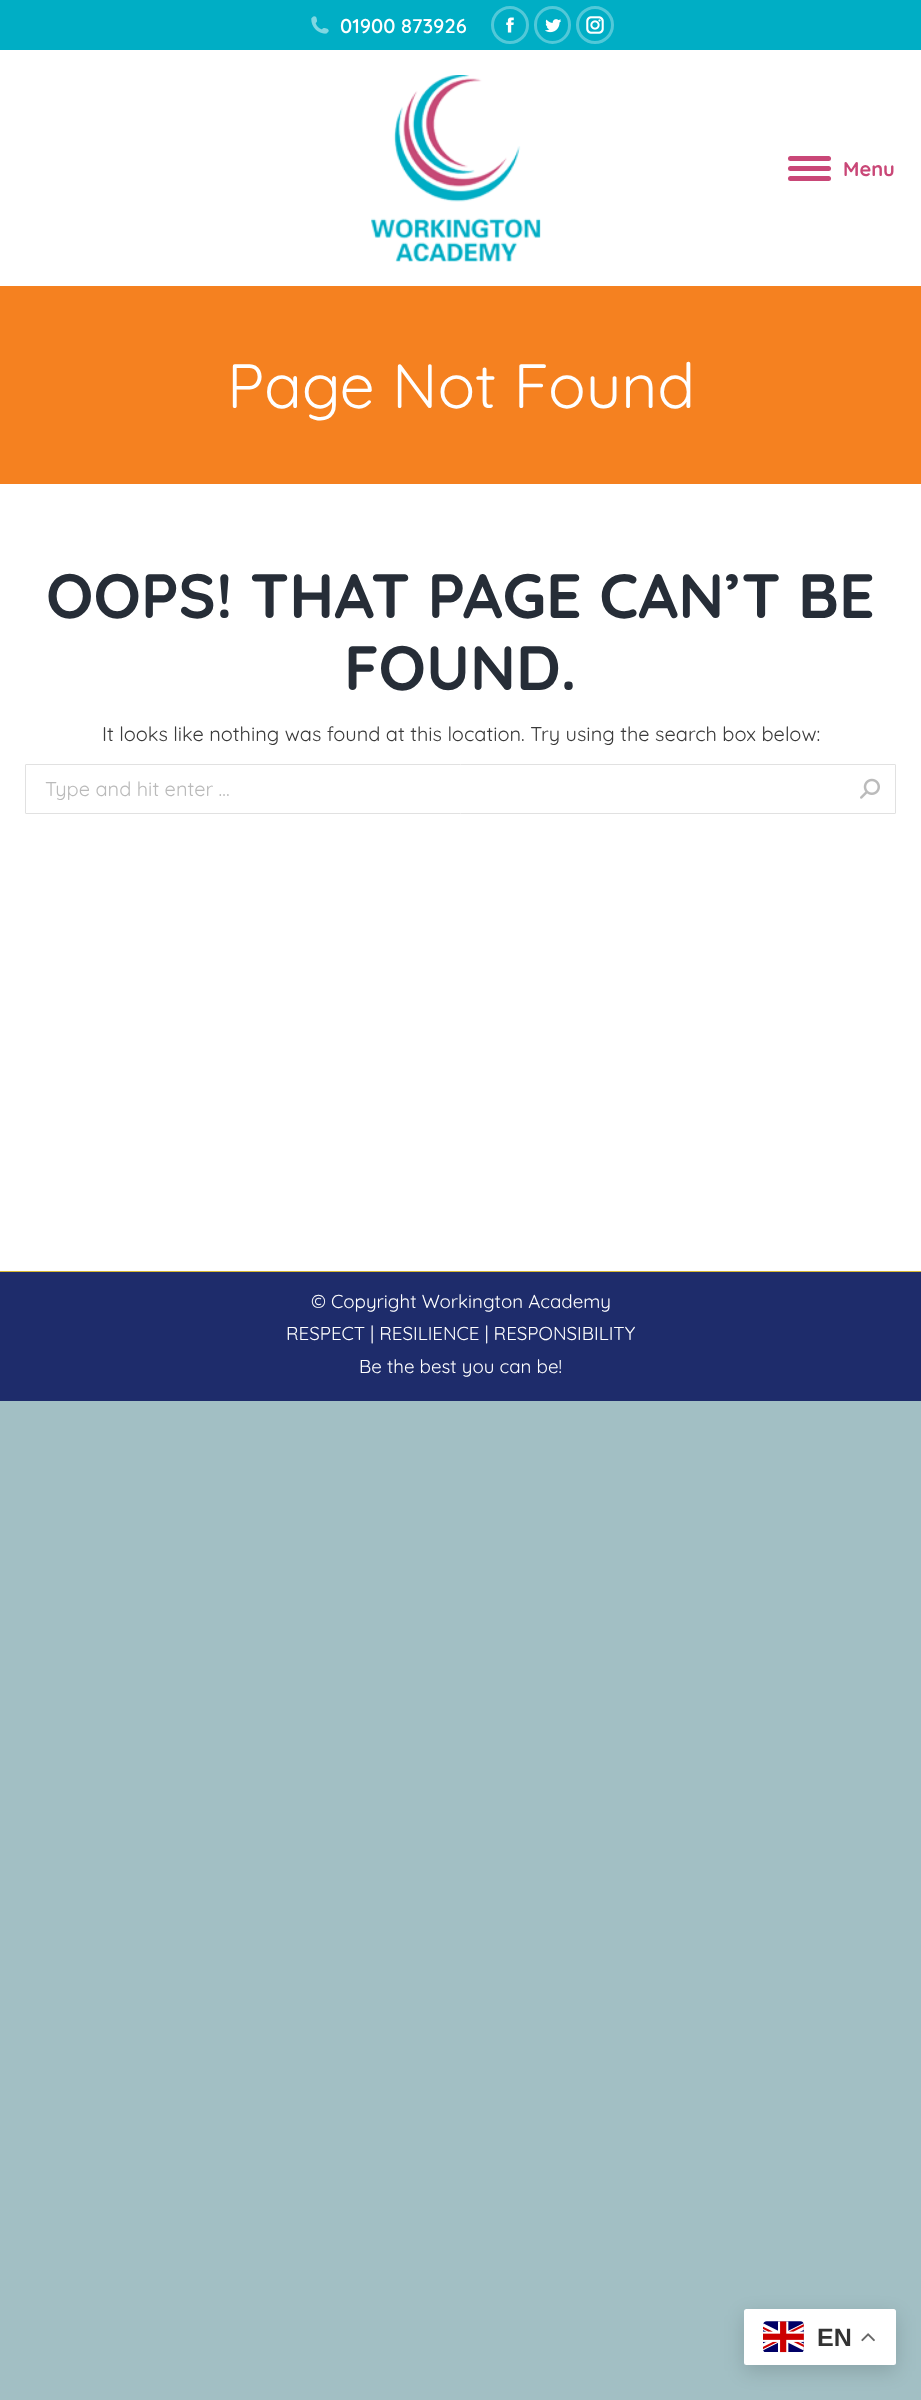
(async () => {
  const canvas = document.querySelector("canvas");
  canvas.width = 921;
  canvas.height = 2400;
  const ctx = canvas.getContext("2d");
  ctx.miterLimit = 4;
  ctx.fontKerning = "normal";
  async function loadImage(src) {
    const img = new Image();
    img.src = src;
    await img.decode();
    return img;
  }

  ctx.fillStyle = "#a2bfc4";
  ctx.fillRect(0, 0, 921, 2400);
  ctx.fillStyle = "#ffffff";
  ctx.fillRect(0, 50, 921, 1221);
  ctx.fillStyle = "#00aec5";
  ctx.fillRect(0, 0, 921, 50);
  ctx.drawImage(await loadImage("img/1.png"), 311, 16, 18, 18);
  ctx.beginPath();
  ctx.arc(510, 25, 17.5, 0, Math.PI * 2);
  ctx.strokeStyle = "#52c8d8";
  ctx.lineWidth = 3;
  ctx.stroke();
  ctx.drawImage(await loadImage("img/2.png"), 506, 17, 8, 16);
  ctx.beginPath();
  ctx.roundRect(535.5, 7.5, 34, 35, 17);
  ctx.stroke();
  ctx.drawImage(await loadImage("img/3.png"), 545, 19, 16, 14);
  ctx.beginPath();
  ctx.arc(595, 25, 17.5, 0, Math.PI * 2);
  ctx.stroke();
  ctx.drawImage(await loadImage("img/4.png"), 586, 16, 18, 18);
  ctx.drawImage(await loadImage("img/5.png"), 371, 75, 170, 187);
  ctx.fillStyle = "#c94777";
  ctx.beginPath();
  ctx.roundRect(788, 156, 43, 5, 2.5);
  ctx.fill();
  ctx.beginPath();
  ctx.roundRect(788, 166, 43, 5, 2.5);
  ctx.fill();
  ctx.beginPath();
  ctx.roundRect(788, 176, 43, 5, 2.5);
  ctx.fill();
  ctx.fillStyle = "#f58120";
  ctx.fillRect(0, 286, 921, 198);
  ctx.beginPath();
  ctx.roundRect(25.5, 764.5, 870, 49, 0.5);
  ctx.strokeStyle = "#e1e1e1";
  ctx.lineWidth = 1;
  ctx.stroke();
  ctx.drawImage(await loadImage("img/6.png"), 860, 778, 20, 21);
  ctx.fillStyle = "#1e2c6b";
  ctx.fillRect(0, 1272, 921, 129);
  ctx.fillStyle = "#d6b834";
  ctx.fillRect(0, 1271, 921, 1);
  ctx.fillStyle = "rgba(0, 0, 0, 0.15)";
  ctx.filter = "blur(9.5px)";
  ctx.beginPath();
  ctx.roundRect(744, 2315, 152, 56, 2.5);
  ctx.fill();
  ctx.filter = "none";
  ctx.fillStyle = "#ffffff";
  ctx.beginPath();
  ctx.roundRect(744, 2309, 152, 56, 2.5);
  ctx.fill();
  ctx.drawImage(await loadImage("img/7.png"), 763, 2321, 41, 32);
  ctx.drawImage(await loadImage("img/8.png"), 861, 2333, 14, 9);
  ctx.font = "600 20px Quicksand";
  ctx.fillText("01900 873926", 340, 33);
  ctx.font = "bold 20px Quicksand";
  ctx.fillStyle = "#c94777";
  ctx.fillText("Menu", 843, 176);
  ctx.font = "62.5px Quicksand";
  ctx.fillStyle = "#ffffff";
  ctx.fillText("Page Not Found", 227, 408);
  ctx.font = "bold 62.5px Quicksand";
  ctx.fillStyle = "#262d37";
  ctx.fillText("OOPS! THAT PAGE CAN’T BE", 46, 618);
  ctx.fillText("FOUND.", 344, 690);
  ctx.font = "20px Quicksand";
  ctx.fillStyle = "#3a3a3a";
  ctx.fillText("It looks like nothing was found at this location. Try using the search box below:", 102, 741);
  ctx.fillStyle = "#bababa";
  ctx.fillText("Type and hit enter …", 45, 796);
  ctx.font = "18.75px Quicksand";
  ctx.fillStyle = "#ffffff";
  for (const [text, x, y] of [
    ["© Copyright Workington Academy", 311, 1308],
    ["RESPECT | RESILIENCE | RESPONSIBILITY", 286, 1340],
    ["Be the best you can be!", 359, 1373],
  ]) {
    ctx.fillText(text, x, y);
  }
  ctx.font = "bold 25px Liberation Sans";
  ctx.fillStyle = "#333333";
  ctx.fillText("EN", 817, 2346);
})();
